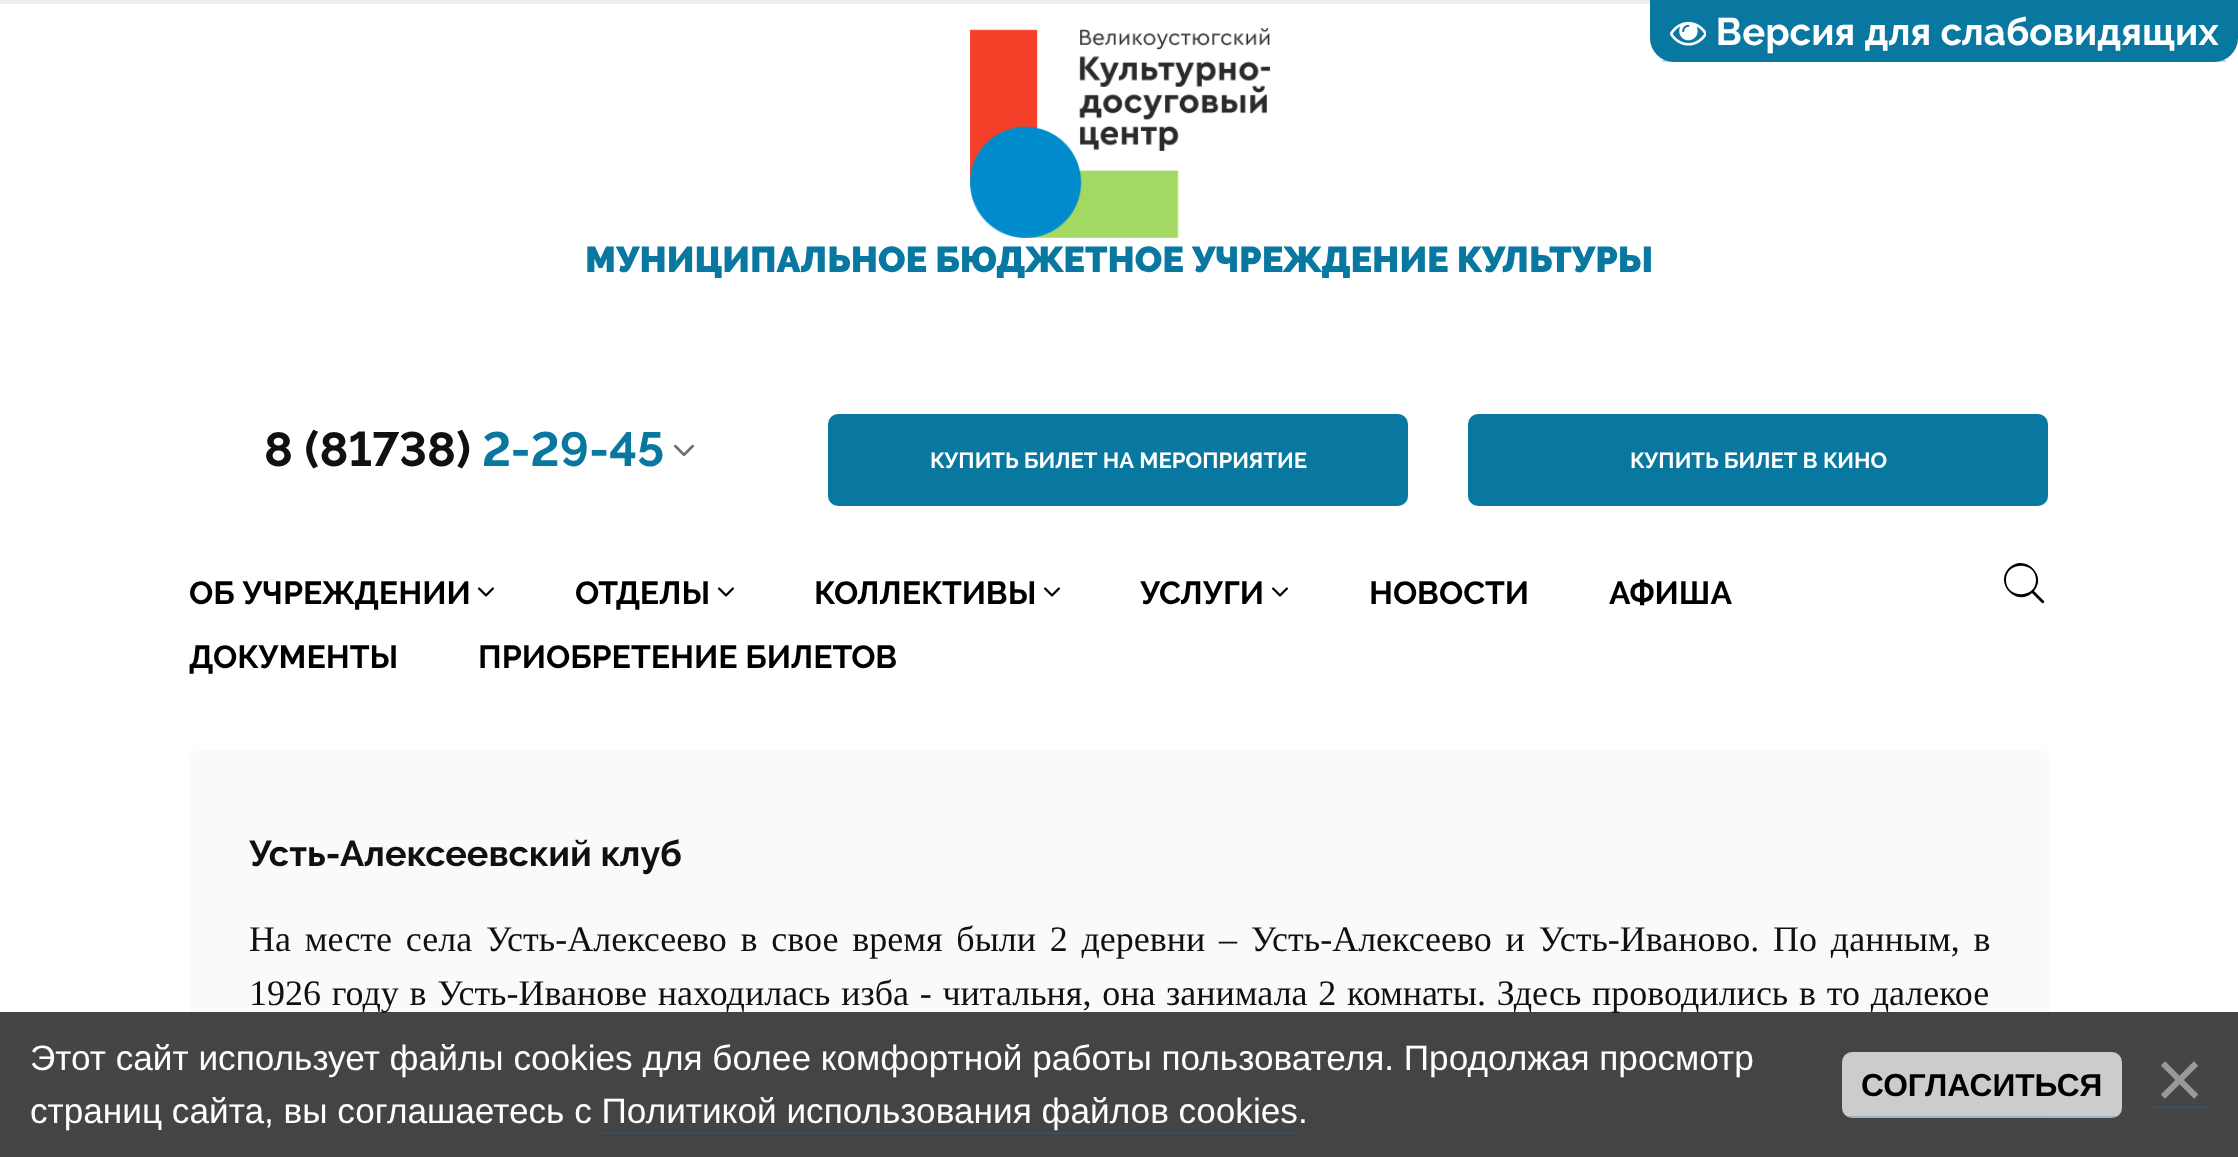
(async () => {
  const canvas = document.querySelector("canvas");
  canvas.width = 2238;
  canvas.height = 1157;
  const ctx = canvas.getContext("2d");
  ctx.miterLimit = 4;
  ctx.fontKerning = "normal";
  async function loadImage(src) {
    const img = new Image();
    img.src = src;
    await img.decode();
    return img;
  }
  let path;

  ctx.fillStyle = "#ffffff";
  ctx.fillRect(0, 0, 2238, 1157);
  ctx.fillStyle = "#0878a1";
  ctx.beginPath();
  ctx.roundRect(1650, 0, 588, 62, [0, 0, 24, 24]);
  ctx.fill();
  ctx.fillStyle = "rgba(8, 120, 161, 0.25)";
  ctx.fillRect(1662, 60, 564, 2);
  ctx.drawImage(await loadImage("img/1.png"), 1670, 21, 36, 25);
  ctx.fillStyle = "#eeeeee";
  ctx.fillRect(0, 0, 1650, 4);
  ctx.drawImage(await loadImage("img/2.png"), 970, 28, 300, 210);
  ctx.drawImage(await loadImage("img/3.png"), 674, 444, 20, 13);
  ctx.fillStyle = "#0878a1";
  ctx.beginPath();
  ctx.roundRect(828, 414, 580, 92, 10);
  ctx.fill();
  ctx.beginPath();
  ctx.roundRect(1468, 414, 580, 92, 10);
  ctx.fill();
  ctx.drawImage(await loadImage("img/4.png"), 478, 587, 16, 10);
  ctx.drawImage(await loadImage("img/4.png"), 718, 587, 16, 10);
  ctx.drawImage(await loadImage("img/4.png"), 1044, 587, 16, 10);
  ctx.drawImage(await loadImage("img/4.png"), 1272, 587, 16, 10);
  ctx.fillStyle = "#000000";
  path = new Path2D("M2044 601C2045 602 2043 604 2042 603L2032 593C2016 607 1994 583 2009 568C2024 553 2048 575 2034 591ZM2006 580C2006 599 2036 599 2036 580C2036 561 2006 561 2006 580Z");
  ctx.fill(path);
  ctx.fillStyle = "#fafafa";
  ctx.beginPath();
  ctx.roundRect(190, 750, 1860, 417, 10);
  ctx.fill();
  ctx.font = "bold 38.4px Raleway";
  ctx.fillStyle = "#ffffff";
  ctx.fillText("Версия для слабовидящих", 1716, 45);
  ctx.font = "900 36px Raleway";
  ctx.fillStyle = "#0878a1";
  ctx.fillText("МУНИЦИПАЛЬНОЕ БЮДЖЕТНОЕ УЧРЕЖДЕНИЕ КУЛЬТУРЫ", 585, 272);
  ctx.font = "bold 48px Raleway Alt";
  ctx.fillStyle = "#101010";
  ctx.fillText("8 (81738)", 264, 466);
  ctx.fillStyle = "#0878a1";
  ctx.fillText("2-29-45", 482, 466);
  ctx.font = "bold 22px Raleway";
  ctx.fillStyle = "#ffffff";
  ctx.fillText("КУПИТЬ БИЛЕТ НА МЕРОПРИЯТИЕ", 930, 468);
  ctx.fillText("КУПИТЬ БИЛЕТ В КИНО", 1630, 468);
  ctx.font = "bold 32px Raleway";
  ctx.fillStyle = "#000000";
  for (const [text, x, y] of [
    ["ОБ УЧРЕЖДЕНИИ", 189, 604],
    ["ОТДЕЛЫ", 575, 604],
    ["КОЛЛЕКТИВЫ", 814, 604],
    ["УСЛУГИ", 1140, 604],
    ["НОВОСТИ", 1369, 604],
    ["АФИША", 1609, 604],
    ["ДОКУМЕНТЫ", 189, 668],
    ["ПРИОБРЕТЕНИЕ БИЛЕТОВ", 478, 668],
  ]) {
    ctx.fillText(text, x, y);
  }
  ctx.font = "bold 36px Raleway";
  ctx.fillStyle = "#101010";
  ctx.fillText("Усть-Алексеевский клуб", 249, 866);
  ctx.wordSpacing = "4.75px";
  ctx.font = "36px Liberation Serif";
  ctx.fillText("На месте села Усть-Алексеево в свое время были 2 деревни – Усть-Алексеево и Усть-Иваново. По данным, в", 249, 951);
  ctx.wordSpacing = "1.7px";
  ctx.fillText("1926 году в Усть-Иванове находилась изба - читальня, она занимала 2 комнаты. Здесь проводились в то далекое", 249, 1005);
  ctx.fillStyle = "rgba(0, 0, 0, 0.73)";
  ctx.fillRect(0, 1012, 2238, 145);
  ctx.wordSpacing = "0px";
  ctx.font = "35.2px Liberation Sans";
  ctx.fillStyle = "#ffffff";
  ctx.fillText("Этот сайт использует файлы cookies для более комфортной работы пользователя. Продолжая просмотр", 30, 1070);
  ctx.fillText("страниц сайта, вы соглашаетесь с Политикой использования файлов cookies.", 30, 1123);
  ctx.fillStyle = "#35515b";
  ctx.fillRect(602, 1132, 696, 2);
  ctx.fillStyle = "rgba(255, 255, 255, 0.73)";
  ctx.beginPath();
  ctx.roundRect(1842, 1052, 280, 66, 10);
  ctx.fill();
  ctx.fillStyle = "rgba(8, 120, 161, 0.25)";
  ctx.fillRect(1848, 1116, 270, 2);
  ctx.font = "bold 31.75px Liberation Sans";
  ctx.fillStyle = "#000000";
  ctx.fillText("СОГЛАСИТЬСЯ", 1861, 1096);
  ctx.fillStyle = "#36525c";
  ctx.fillRect(2152, 1106, 56, 2);
  ctx.font = "84px Liberation Sans";
  ctx.fillStyle = "#999999";
  ctx.fillText("×", 2155, 1108);
})();
